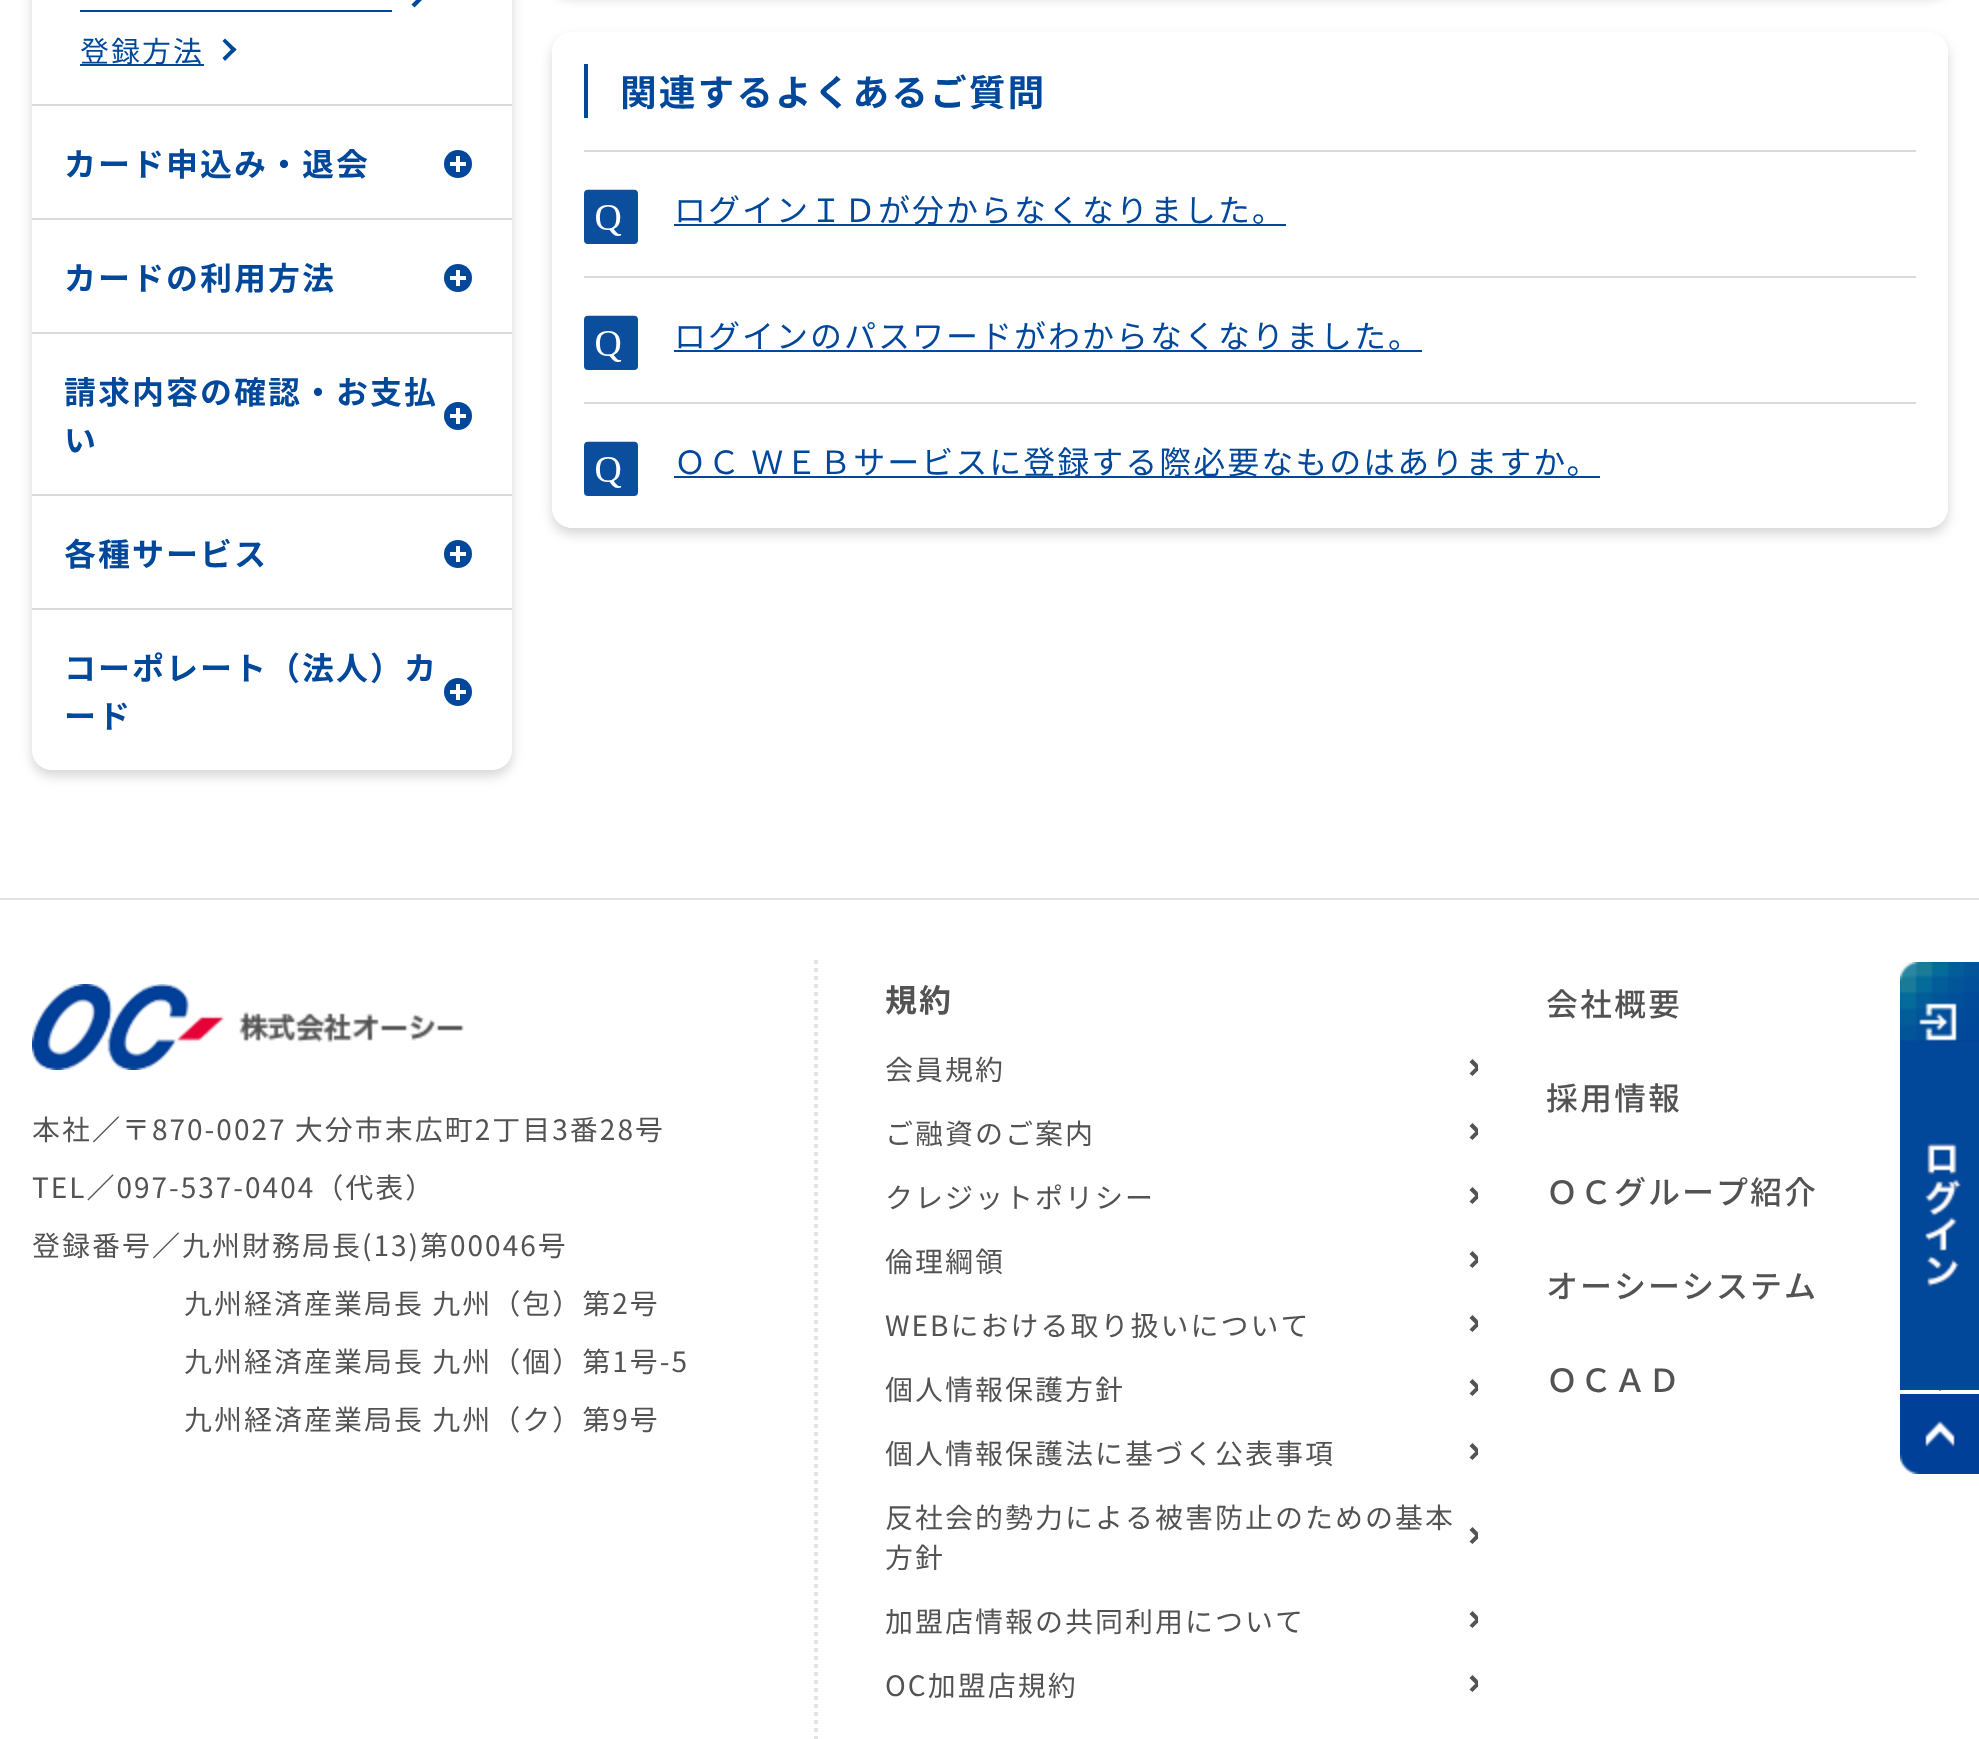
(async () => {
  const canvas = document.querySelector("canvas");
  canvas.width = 1979;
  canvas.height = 1739;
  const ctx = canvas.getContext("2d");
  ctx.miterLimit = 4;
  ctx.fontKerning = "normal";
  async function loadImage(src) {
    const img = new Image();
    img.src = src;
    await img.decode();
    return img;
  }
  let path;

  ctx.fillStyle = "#ffffff";
  ctx.fillRect(0, 0, 1979, 1739);
  ctx.fillStyle = "#e2e2e2";
  ctx.fillRect(0, 898, 1979, 2);
  ctx.save();
  path = new Path2D("M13 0H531V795H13ZM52-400H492C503-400 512-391 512-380V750C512 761 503 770 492 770H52C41 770 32 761 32 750V-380C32-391 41-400 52-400Z");
  ctx.clip(path, "evenodd");
  ctx.fillStyle = "rgba(0, 0, 0, 0.16)";
  ctx.filter = "blur(6px)";
  ctx.beginPath();
  ctx.roundRect(32, -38, 480, 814, 20);
  ctx.fill();
  ctx.filter = "none";
  ctx.restore();
  ctx.fillStyle = "#01479a";
  path = new Path2D("M423-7L426-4L414.5 7.5L411.5 4.5Z");
  ctx.fill(path);
  ctx.fillRect(80, 10, 312, 2);
  ctx.fillRect(80, 64, 124, 2);
  path = new Path2D("M225 38.5L236.5 49.5L233.5 52.5L222.5 41Z");
  ctx.fill(path);
  path = new Path2D("M233.5 47L236.5 49.5L225 61L222.5 58Z");
  ctx.fill(path);
  ctx.fillStyle = "#dadada";
  ctx.fillRect(32, 104, 480, 2);
  ctx.fillStyle = "#01479a";
  ctx.beginPath();
  ctx.arc(458, 164, 14, 0, Math.PI * 2);
  ctx.fill();
  for (const [x, y, w, h, color] of [
    [450, 162, 16, 4, "#ffffff"],
    [456, 156, 4, 16, "#ffffff"],
    [32, 218, 480, 2, "#dadada"],
  ]) {
    ctx.fillStyle = color;
    ctx.fillRect(x, y, w, h);
  }
  ctx.fillStyle = "#01479a";
  ctx.beginPath();
  ctx.arc(458, 278, 14, 0, Math.PI * 2);
  ctx.fill();
  for (const [x, y, w, h, color] of [
    [450, 276, 16, 4, "#ffffff"],
    [456, 270, 4, 16, "#ffffff"],
    [32, 332, 480, 2, "#dadada"],
  ]) {
    ctx.fillStyle = color;
    ctx.fillRect(x, y, w, h);
  }
  ctx.fillStyle = "#01479a";
  ctx.beginPath();
  ctx.arc(458, 416, 14, 0, Math.PI * 2);
  ctx.fill();
  for (const [x, y, w, h, color] of [
    [450, 414, 16, 4, "#ffffff"],
    [456, 408, 4, 16, "#ffffff"],
    [32, 494, 480, 2, "#dadada"],
  ]) {
    ctx.fillStyle = color;
    ctx.fillRect(x, y, w, h);
  }
  ctx.fillStyle = "#01479a";
  ctx.beginPath();
  ctx.arc(458, 554, 14, 0, Math.PI * 2);
  ctx.fill();
  for (const [x, y, w, h, color] of [
    [450, 552, 16, 4, "#ffffff"],
    [456, 546, 4, 16, "#ffffff"],
    [32, 608, 480, 2, "#dadada"],
  ]) {
    ctx.fillStyle = color;
    ctx.fillRect(x, y, w, h);
  }
  ctx.fillStyle = "#01479a";
  ctx.beginPath();
  ctx.arc(458, 692, 14, 0, Math.PI * 2);
  ctx.fill();
  ctx.fillStyle = "#ffffff";
  ctx.fillRect(450, 690, 16, 4);
  ctx.fillRect(456, 684, 4, 16);
  ctx.fillStyle = "rgba(0, 0, 0, 0.16)";
  ctx.filter = "blur(6px)";
  ctx.beginPath();
  ctx.roundRect(552, -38, 1396, 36, 20);
  ctx.fill();
  ctx.filter = "none";
  ctx.save();
  path = new Path2D("M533 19H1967V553H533ZM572 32H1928C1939 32 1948 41 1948 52V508C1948 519 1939 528 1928 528H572C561 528 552 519 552 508V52C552 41 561 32 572 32Z");
  ctx.clip(path, "evenodd");
  ctx.filter = "blur(6px)";
  ctx.beginPath();
  ctx.roundRect(552, 38, 1396, 496, 20);
  ctx.fill();
  ctx.filter = "none";
  ctx.restore();
  ctx.fillStyle = "#01479a";
  ctx.fillRect(584, 64, 4, 54);
  ctx.fillStyle = "#dadada";
  ctx.fillRect(584, 150, 1332, 2);
  ctx.drawImage(await loadImage("img/1.png"), 584, 189, 54, 55);
  ctx.fillStyle = "#01479a";
  ctx.fillRect(674, 224, 612, 2);
  ctx.fillStyle = "#dadada";
  ctx.fillRect(584, 276, 1332, 2);
  ctx.drawImage(await loadImage("img/1.png"), 584, 315, 54, 55);
  ctx.fillStyle = "#01479a";
  ctx.fillRect(674, 350, 748, 2);
  ctx.fillStyle = "#dadada";
  ctx.fillRect(584, 402, 1332, 2);
  ctx.drawImage(await loadImage("img/1.png"), 584, 441, 54, 55);
  ctx.fillStyle = "#01479a";
  ctx.fillRect(674, 476, 926, 2);
  path = new Path2D("M816 960V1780");
  ctx.strokeStyle = "#e3e3e3";
  ctx.lineWidth = 4;
  ctx.setLineDash([4, 4]);
  ctx.stroke(path);
  ctx.drawImage(await loadImage("img/2.png"), 32, 984, 432, 86);
  ctx.save();
  ctx.beginPath();
  ctx.rect(884, 1036, 594, 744);
  ctx.clip();
  ctx.fillStyle = "#545353";
  path = new Path2D("M1472.5 1059L1481 1067.5L1478 1070.5L1469.5 1062Z");
  ctx.fill(path);
  path = new Path2D("M1478 1065L1481 1067.5L1472.5 1076L1469.5 1073.5Z");
  ctx.fill(path);
  path = new Path2D("M1472.5 1123L1481 1131.5L1478 1134.5L1469.5 1126Z");
  ctx.fill(path);
  path = new Path2D("M1478 1129L1481 1131.5L1472.5 1140L1469.5 1137.5Z");
  ctx.fill(path);
  path = new Path2D("M1472.5 1187L1481 1195.5L1478 1198.5L1469.5 1190Z");
  ctx.fill(path);
  path = new Path2D("M1478 1193L1481 1195.5L1472.5 1204L1469.5 1201.5Z");
  ctx.fill(path);
  path = new Path2D("M1472.5 1251L1481 1259.5L1478 1262.5L1469.5 1254Z");
  ctx.fill(path);
  path = new Path2D("M1478 1257L1481 1259.5L1472.5 1268L1469.5 1265.5Z");
  ctx.fill(path);
  path = new Path2D("M1472.5 1315L1481 1323.5L1478 1326.5L1469.5 1318Z");
  ctx.fill(path);
  path = new Path2D("M1478 1321L1481 1323.5L1472.5 1332L1469.5 1329.5Z");
  ctx.fill(path);
  path = new Path2D("M1472.5 1379L1481 1387.5L1478 1390.5L1469.5 1382Z");
  ctx.fill(path);
  path = new Path2D("M1478 1385L1481 1387.5L1472.5 1396L1469.5 1393.5Z");
  ctx.fill(path);
  path = new Path2D("M1472.5 1443L1481 1451.5L1478 1454.5L1469.5 1446Z");
  ctx.fill(path);
  path = new Path2D("M1478 1449L1481 1451.5L1472.5 1460L1469.5 1457.5Z");
  ctx.fill(path);
  path = new Path2D("M1472.5 1527L1481 1535.5L1478 1538.5L1469.5 1530Z");
  ctx.fill(path);
  path = new Path2D("M1478 1533L1481 1535.5L1472.5 1544L1469.5 1541.5Z");
  ctx.fill(path);
  path = new Path2D("M1472.5 1611L1481 1619.5L1478 1622.5L1469.5 1614Z");
  ctx.fill(path);
  path = new Path2D("M1478 1617L1481 1619.5L1472.5 1628L1469.5 1625.5Z");
  ctx.fill(path);
  path = new Path2D("M1472.5 1675L1481 1683.5L1478 1686.5L1469.5 1678Z");
  ctx.fill(path);
  path = new Path2D("M1478 1681L1481 1683.5L1472.5 1692L1469.5 1689.5Z");
  ctx.fill(path);
  ctx.restore();
  ctx.fillStyle = "#545353";
  path = new Path2D("M1948.5 1377L1951.5 1379.5L1940 1391L1937 1388Z");
  ctx.fill(path);
  ctx.drawImage(await loadImage("img/3.png"), 1900, 962, 79, 428);
  ctx.drawImage(await loadImage("img/4.png"), 1900, 1394, 79, 80);
  ctx.letterSpacing = "2px";
  ctx.font = "29px Noto Sans JP";
  ctx.fillStyle = "#01479a";
  ctx.fillText("登録方法", 80, 62);
  ctx.font = "bold 32px Noto Sans JP";
  for (const [text, x, y] of [
    ["カード申込み・退会", 64, 176],
    ["カードの利用方法", 64, 290],
    ["請求内容の確認・お支払", 64, 404],
    ["い", 64, 452],
    ["各種サービス", 64, 566],
    ["コーポレート（法人）カ", 64, 680],
    ["ード", 64, 728],
  ]) {
    ctx.fillText(text, x, y);
  }
  ctx.font = "bold 36.75px Noto Sans JP";
  ctx.fillText("関連するよくあるご質問", 620, 106);
  ctx.font = "32px Noto Sans JP";
  for (const [text, x, y] of [
    ["ログインＩＤが分からなくなりました。", 674, 222],
    ["ログインのパスワードがわからなくなりました。", 674, 348],
    ["ＯＣ ＷＥＢサービスに登録する際必要なものはありますか。", 674, 474],
  ]) {
    ctx.fillText(text, x, y);
  }
  ctx.font = "28px Noto Sans JP";
  ctx.fillStyle = "#545353";
  for (const [text, x, y] of [
    ["本社／〒870-0027 大分市末広町2丁目3番28号", 32, 1140],
    ["TEL／097-537-0404（代表）", 32, 1198],
    ["登録番号／九州財務局長(13)第00046号", 32, 1256],
    ["九州経済産業局長 九州（包）第2号", 184, 1314],
    ["九州経済産業局長 九州（個）第1号-5", 184, 1372],
    ["九州経済産業局長 九州（ク）第9号", 184, 1430],
  ]) {
    ctx.fillText(text, x, y);
  }
  ctx.font = "bold 32px Noto Sans JP";
  ctx.fillText("規約", 885, 1012);
  ctx.font = "28px Noto Sans JP";
  for (const [text, x, y] of [
    ["会員規約", 885, 1080],
    ["ご融資のご案内", 885, 1144],
    ["クレジットポリシー", 885, 1208],
    ["倫理綱領", 885, 1272],
    ["WEBにおける取り扱いについて", 885, 1336],
    ["個人情報保護方針", 885, 1400],
    ["個人情報保護法に基づく公表事項", 885, 1464],
    ["反社会的勢力による被害防止のための基本", 885, 1528],
    ["方針", 885, 1568],
    ["加盟店情報の共同利用について", 885, 1632],
    ["OC加盟店規約", 885, 1696],
  ]) {
    ctx.fillText(text, x, y);
  }
  ctx.font = "500 32px Noto Sans JP";
  for (const [text, x, y] of [
    ["会社概要", 1546, 1016],
    ["採用情報", 1546, 1110],
    ["ＯＣグループ紹介", 1546, 1204],
    ["オーシーシステム", 1546, 1298],
    ["ＯＣＡＤ", 1546, 1392],
  ]) {
    ctx.fillText(text, x, y);
  }
})();
